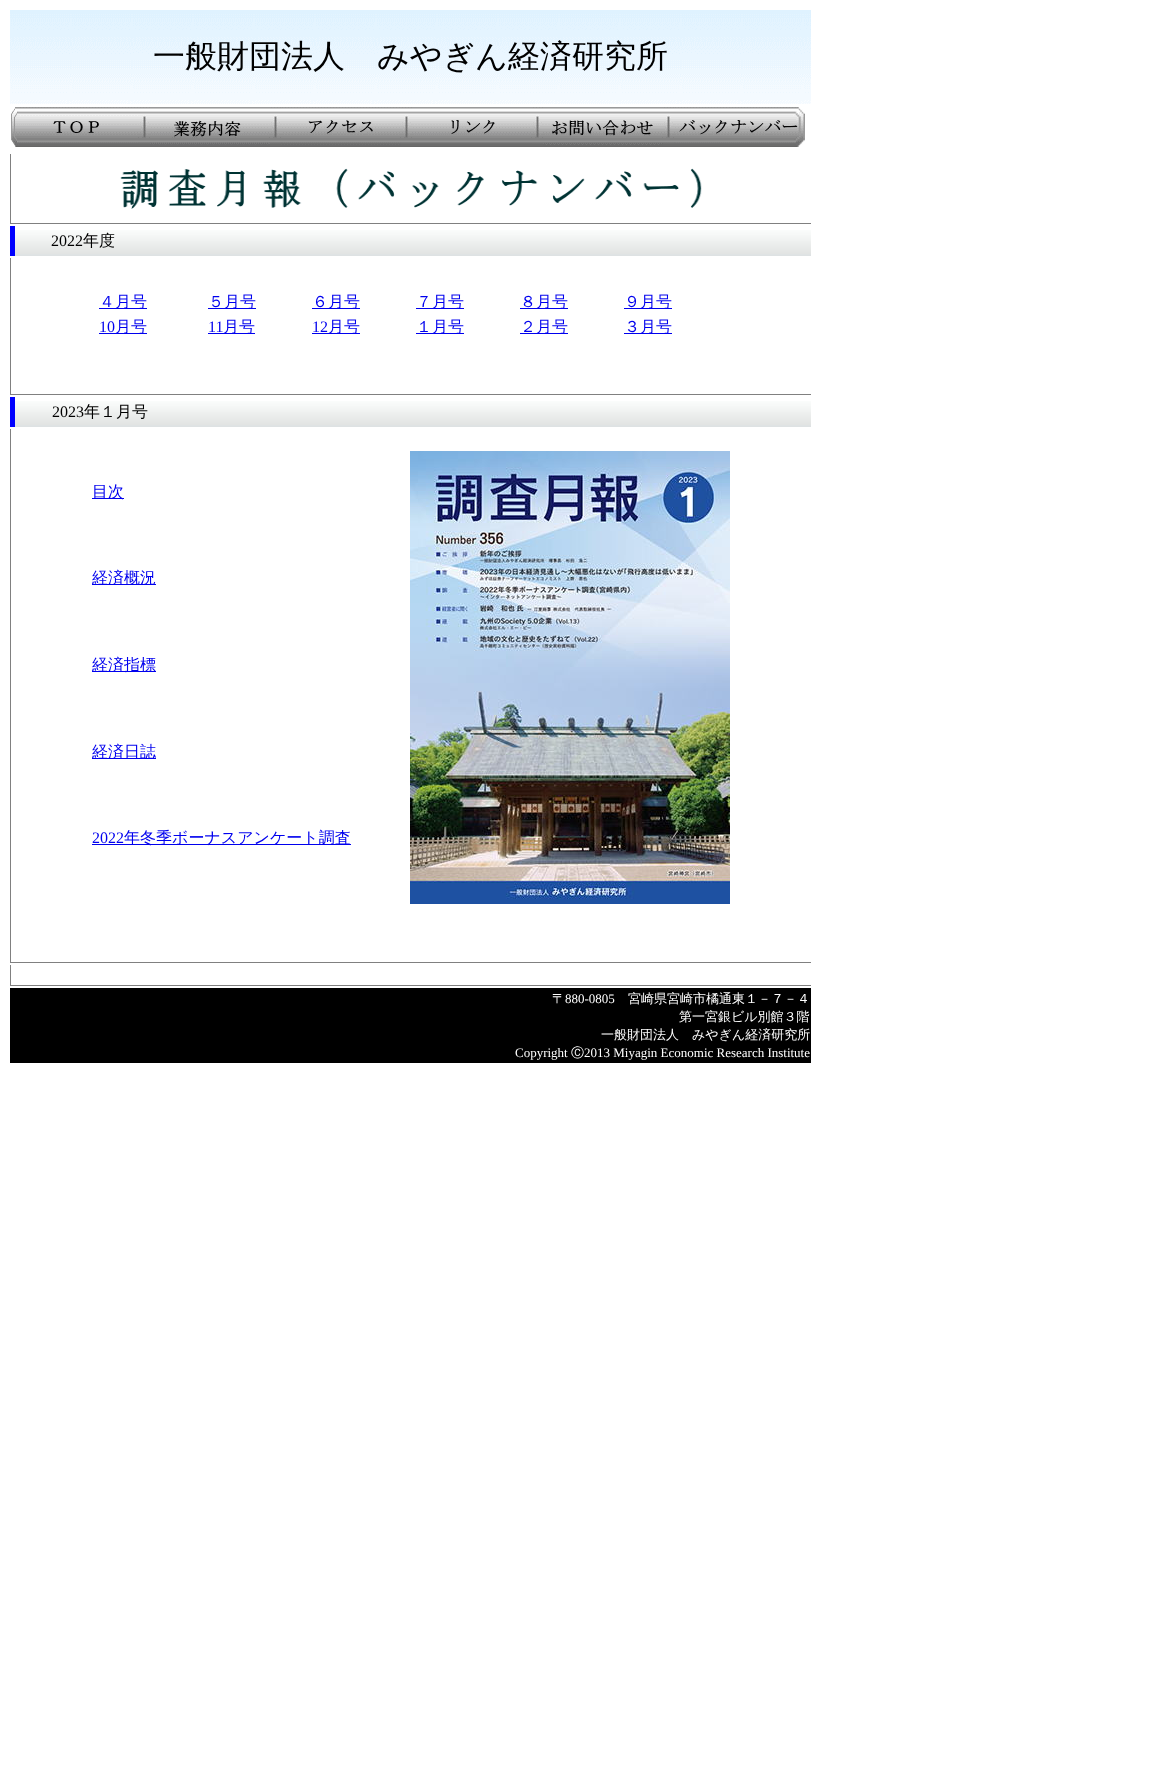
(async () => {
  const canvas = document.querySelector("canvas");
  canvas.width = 1151;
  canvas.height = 1774;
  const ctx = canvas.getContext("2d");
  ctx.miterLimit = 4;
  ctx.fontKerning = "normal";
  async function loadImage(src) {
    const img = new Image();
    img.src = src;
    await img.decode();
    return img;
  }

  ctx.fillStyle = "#ffffff";
  ctx.fillRect(0, 0, 1151, 1774);
  ctx.drawImage(await loadImage("img/1.png"), 10, 10, 801, 94);
  ctx.drawImage(await loadImage("img/2.png"), 11, 107, 128, 40);
  ctx.drawImage(await loadImage("img/3.png"), 139, 107, 11, 40);
  ctx.drawImage(await loadImage("img/4.png"), 150, 107, 120, 40);
  ctx.drawImage(await loadImage("img/3.png"), 270, 107, 11, 40);
  ctx.drawImage(await loadImage("img/5.png"), 281, 107, 120, 40);
  ctx.drawImage(await loadImage("img/3.png"), 401, 107, 11, 40);
  ctx.drawImage(await loadImage("img/6.png"), 412, 107, 120, 40);
  ctx.drawImage(await loadImage("img/3.png"), 532, 107, 11, 40);
  ctx.drawImage(await loadImage("img/7.png"), 543, 107, 120, 40);
  ctx.drawImage(await loadImage("img/3.png"), 663, 107, 11, 40);
  ctx.drawImage(await loadImage("img/8.png"), 674, 107, 131, 40);
  ctx.fillStyle = "#808080";
  ctx.fillRect(10, 223, 801, 1);
  ctx.fillRect(10, 154, 1, 70);
  ctx.drawImage(await loadImage("img/9.png"), 120, 168, 582, 41);
  ctx.drawImage(await loadImage("img/10.png"), 15, 230, 796, 26);
  for (const [x, y, w, h, color] of [
    [10, 226, 5, 30, "#0000ff"],
    [10, 394, 801, 1, "#808080"],
    [10, 258, 1, 137, "#808080"],
    [99, 308, 48, 1, "#0000ee"],
    [208, 308, 48, 1, "#0000ee"],
    [312, 308, 48, 1, "#0000ee"],
    [416, 308, 48, 1, "#0000ee"],
    [520, 308, 48, 1, "#0000ee"],
    [624, 308, 48, 1, "#0000ee"],
    [99, 333, 48, 1, "#0000ee"],
    [208, 333, 47, 1, "#0000ee"],
    [312, 333, 48, 1, "#0000ee"],
    [416, 333, 48, 1, "#0000ee"],
    [520, 333, 48, 1, "#0000ee"],
    [624, 333, 48, 1, "#0000ee"],
  ]) {
    ctx.fillStyle = color;
    ctx.fillRect(x, y, w, h);
  }
  ctx.drawImage(await loadImage("img/10.png"), 15, 401, 796, 26);
  for (const [x, y, w, h, color] of [
    [10, 397, 5, 30, "#0000ff"],
    [10, 962, 801, 1, "#808080"],
    [10, 429, 1, 534, "#808080"],
    [92, 498, 32, 1, "#0000ee"],
  ]) {
    ctx.fillStyle = color;
    ctx.fillRect(x, y, w, h);
  }
  ctx.drawImage(await loadImage("img/11.png"), 410, 451, 320, 453);
  for (const [x, y, w, h, color] of [
    [92, 584, 64, 1, "#0000ee"],
    [92, 671, 64, 1, "#0000ee"],
    [92, 758, 64, 1, "#0000ee"],
    [92, 844, 259, 1, "#0000ee"],
    [10, 985, 801, 1, "#808080"],
    [10, 965, 1, 21, "#808080"],
    [10, 988, 801, 75, "#000000"],
  ]) {
    ctx.fillStyle = color;
    ctx.fillRect(x, y, w, h);
  }
  ctx.font = "500 32px WenQuanYi Zen Hei";
  ctx.fillText("一般財団法人　みやぎん経済研究所", 153, 67);
  ctx.font = "16px Liberation Serif";
  ctx.fillText("2022", 51, 246);
  ctx.font = "500 16px WenQuanYi Zen Hei";
  ctx.fillText("年度", 83, 246);
  ctx.fillStyle = "#0000ee";
  for (const [text, x, y] of [
    ["４月号", 99, 307],
    ["５月号", 208, 307],
    ["６月号", 312, 307],
    ["７月号", 416, 307],
    ["８月号", 520, 307],
    ["９月号", 624, 307],
  ]) {
    ctx.fillText(text, x, y);
  }
  ctx.font = "16px Liberation Serif";
  ctx.fillText("10", 99, 332);
  ctx.font = "500 16px WenQuanYi Zen Hei";
  ctx.fillText("月号", 115, 332);
  ctx.font = "16px Liberation Serif";
  ctx.fillText("11", 208, 332);
  ctx.font = "500 16px WenQuanYi Zen Hei";
  ctx.fillText("月号", 223, 332);
  ctx.font = "16px Liberation Serif";
  ctx.fillText("12", 312, 332);
  ctx.font = "500 16px WenQuanYi Zen Hei";
  for (const [text, x, y] of [
    ["月号", 328, 332],
    ["１月号", 416, 332],
    ["２月号", 520, 332],
    ["３月号", 624, 332],
  ]) {
    ctx.fillText(text, x, y);
  }
  ctx.font = "16px Liberation Serif";
  ctx.fillStyle = "#000000";
  ctx.fillText("2023", 52, 417);
  ctx.font = "500 16px WenQuanYi Zen Hei";
  ctx.fillText("年１月号", 84, 417);
  ctx.fillStyle = "#0000ee";
  for (const [text, x, y] of [
    ["目次", 92, 497],
    ["経済概況", 92, 583],
    ["経済指標", 92, 670],
    ["経済日誌", 92, 757],
  ]) {
    ctx.fillText(text, x, y);
  }
  ctx.font = "16px Liberation Serif";
  ctx.fillText("2022", 92, 843);
  ctx.font = "500 16px WenQuanYi Zen Hei";
  ctx.fillText("年冬季ボーナスアンケート調査", 124, 843);
  ctx.font = "500 13px WenQuanYi Zen Hei";
  ctx.fillStyle = "#ffffff";
  ctx.fillText("〒", 552, 1003);
  ctx.font = "13px Liberation Serif";
  ctx.fillText("880-0805", 565, 1003);
  ctx.font = "500 13px WenQuanYi Zen Hei";
  for (const [text, x, y] of [
    ["宮崎県宮崎市橘通東１－７－４", 628, 1003],
    ["第一宮銀ビル別館３階", 679, 1021],
    ["一般財団法人　みやぎん経済研究所", 601, 1039],
  ]) {
    ctx.fillText(text, x, y);
  }
  ctx.font = "13px Liberation Serif";
  ctx.fillText("Copyright", 515, 1057);
  ctx.font = "500 13px WenQuanYi Zen Hei";
  ctx.fillText("Ⓒ", 571, 1057);
  ctx.font = "13px Liberation Serif";
  ctx.fillText("2013 Miyagin Economic Research Institute", 584, 1057);
})();
